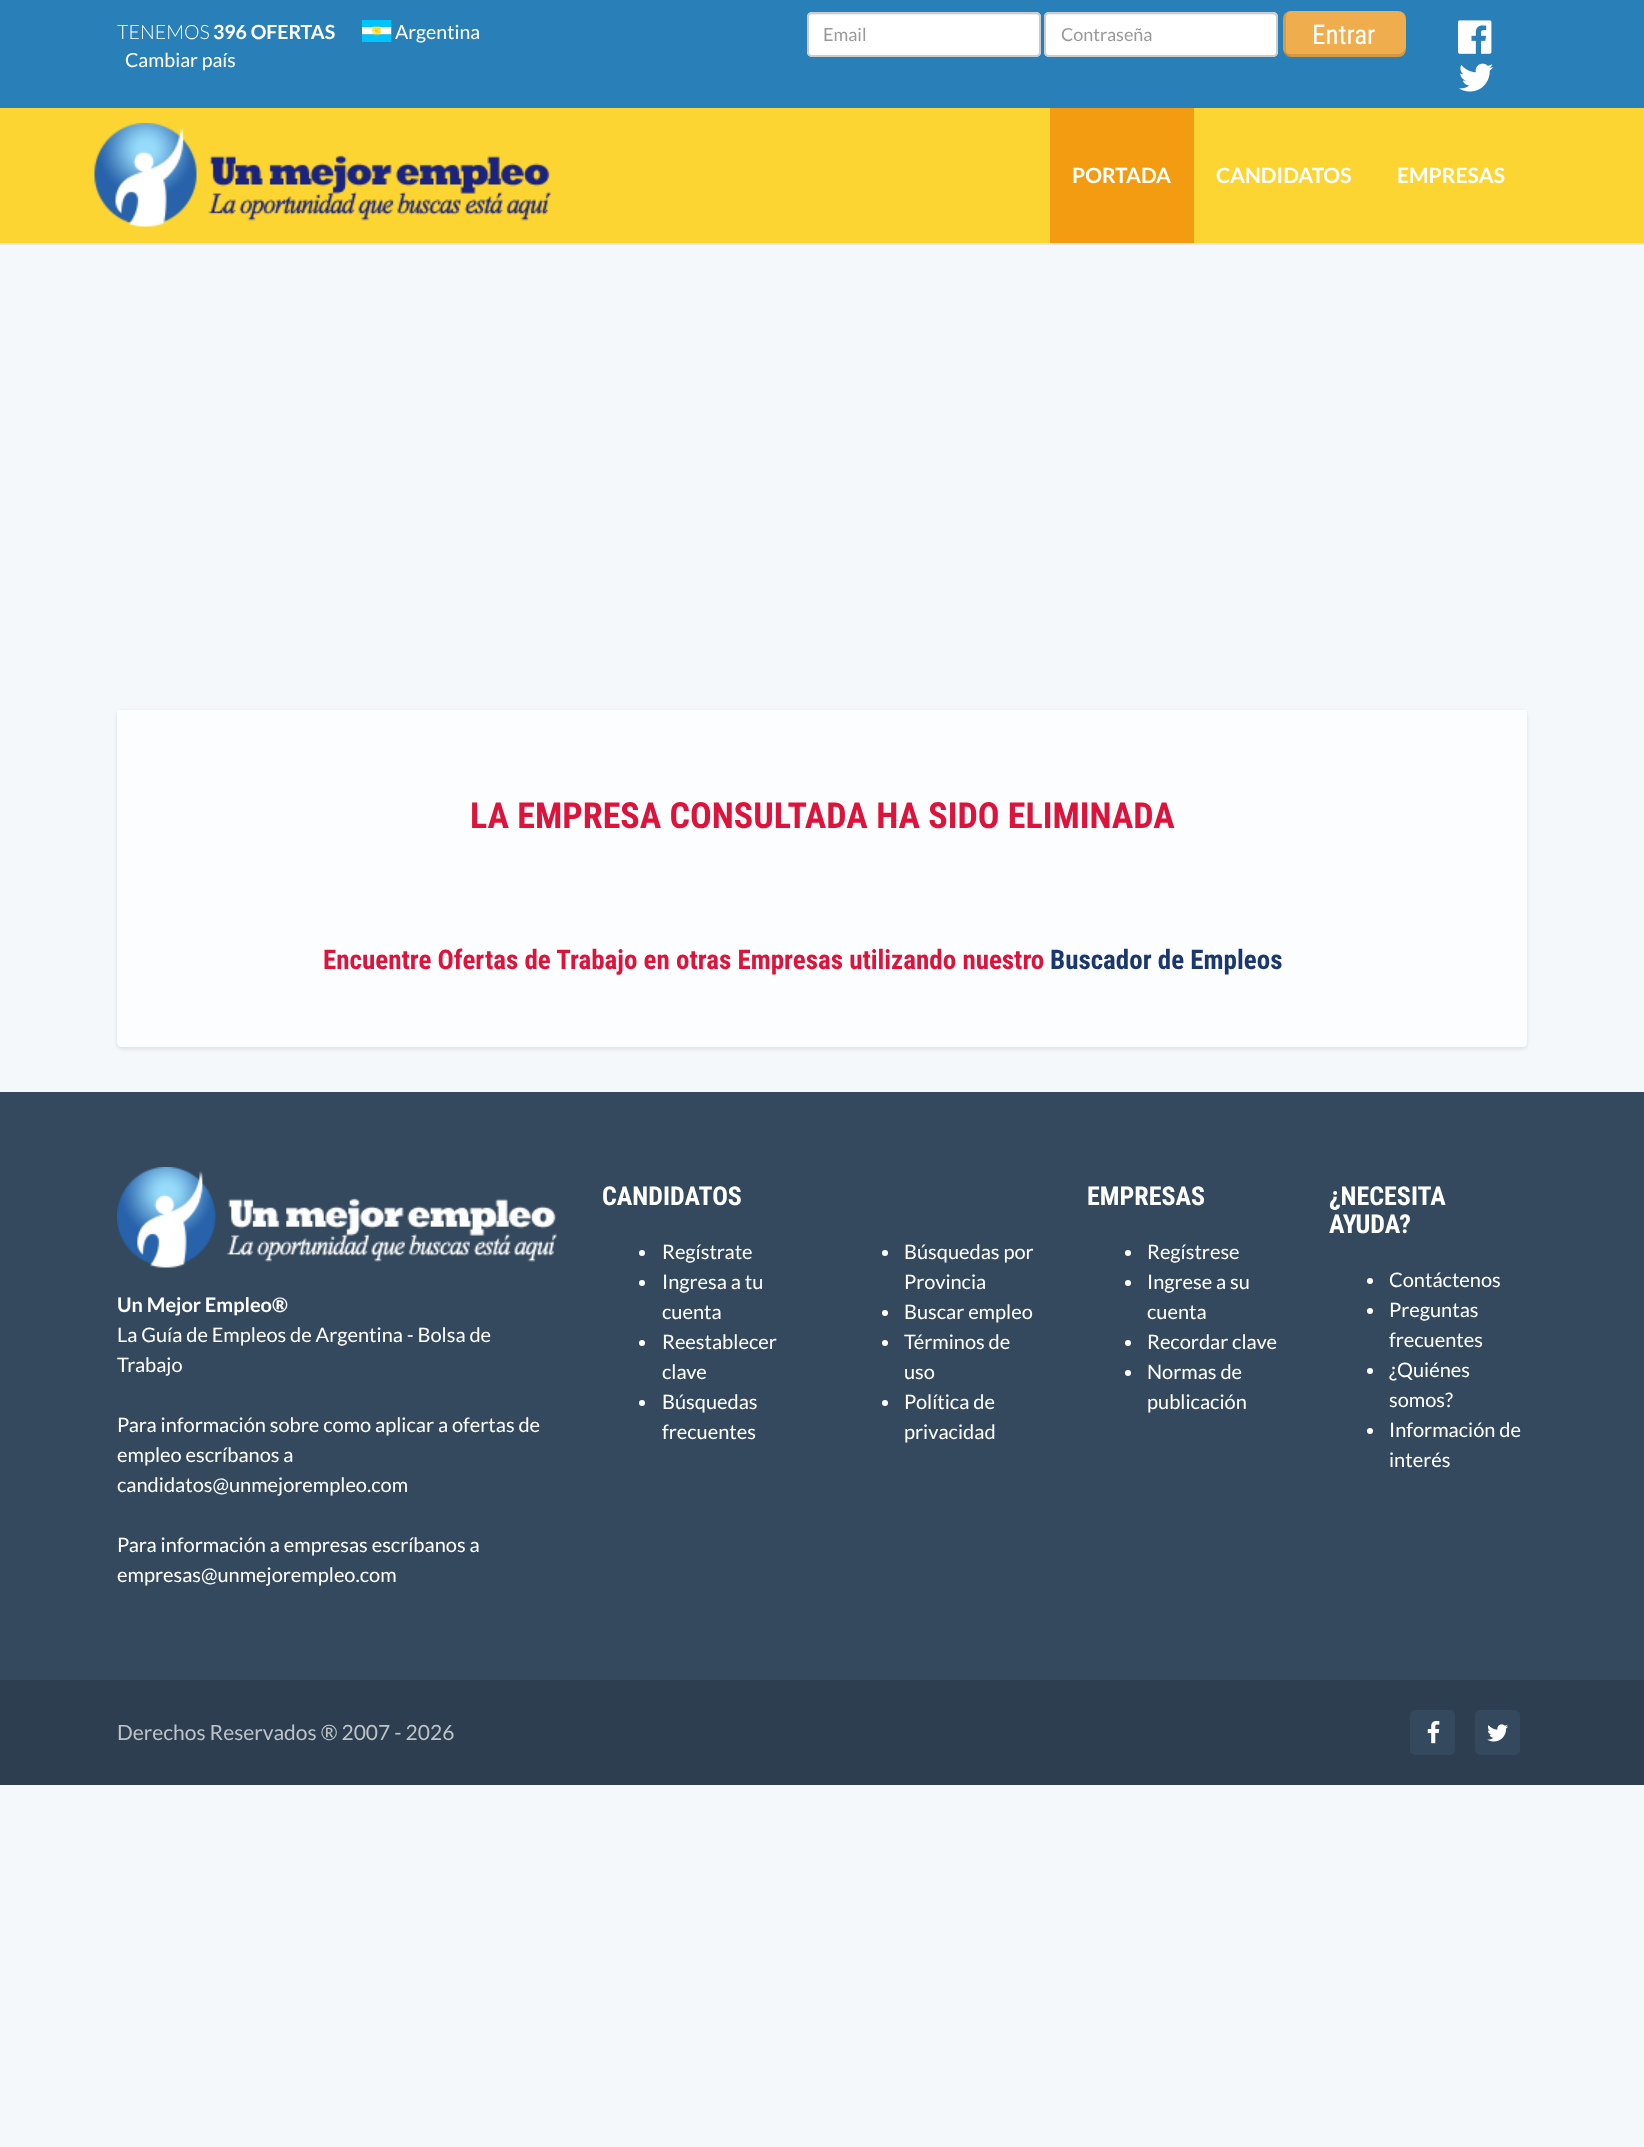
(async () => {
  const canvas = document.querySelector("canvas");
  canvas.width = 1644;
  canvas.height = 2147;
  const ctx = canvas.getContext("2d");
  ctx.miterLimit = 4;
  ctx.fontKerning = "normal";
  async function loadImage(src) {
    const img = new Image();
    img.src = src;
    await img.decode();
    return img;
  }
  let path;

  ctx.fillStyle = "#f5f8fa";
  ctx.fillRect(0, 0, 1644, 2147);
  ctx.fillStyle = "#2980b9";
  ctx.fillRect(0, 0, 1644, 108);
  ctx.drawImage(await loadImage("img/1.png"), 362, 20, 30, 22);
  ctx.fillStyle = "#ffffff";
  ctx.beginPath();
  ctx.roundRect(807, 12, 234, 45, 5);
  ctx.fill();
  ctx.fillStyle = "#ececec";
  path = new Path2D("M812 15H1036C1038 15 1040 16 1040 18V17C1040 15 1039 14 1037 14H812C811 14 810 15 809 16Z");
  ctx.fill(path);
  ctx.beginPath();
  ctx.roundRect(808, 13, 232, 43, 4);
  ctx.strokeStyle = "#cccccc";
  ctx.lineWidth = 2;
  ctx.stroke();
  ctx.fillStyle = "#ffffff";
  ctx.beginPath();
  ctx.roundRect(1044, 12, 234, 45, 5);
  ctx.fill();
  ctx.fillStyle = "#ececec";
  path = new Path2D("M1048 15H1274C1275 15 1276 16 1276 18V55C1277 55 1277 54 1277 53V17C1277 15 1276 14 1274 14H1049C1047 14 1046 15 1046 17V18C1046 16 1047 15 1048 15Z");
  ctx.fill(path);
  ctx.beginPath();
  ctx.roundRect(1045, 13, 232, 43, 4);
  ctx.stroke();
  ctx.fillStyle = "#f0ad4e";
  ctx.beginPath();
  ctx.roundRect(1283, 11, 123, 46, 8);
  ctx.fill();
  ctx.fillStyle = "rgba(0, 0, 0, 0.1)";
  path = new Path2D("M1289 11C1286 12 1283 15 1283 19V49C1283 53 1287 57 1291 57H1293C1289 57 1286 54 1286 50V18C1286 15 1287 13 1289 11Z");
  ctx.fill(path);
  ctx.fillStyle = "rgba(0, 0, 0, 0.12)";
  path = new Path2D("M1283 50C1283 54 1287 57 1291 57H1398C1402 57 1406 53 1406 49V46C1406 50 1402 54 1398 54H1290C1287 54 1284 52 1283 50Z");
  ctx.fill(path);
  ctx.drawImage(await loadImage("img/2.png"), 1458, 20, 34, 34);
  ctx.drawImage(await loadImage("img/3.png"), 1459, 63, 35, 29);
  ctx.fillStyle = "#fdd532";
  ctx.fillRect(0, 108, 1644, 135);
  ctx.fillStyle = "#e7e7e7";
  ctx.fillRect(0, 243, 1644, 2);
  ctx.drawImage(await loadImage("img/4.png"), 94, 123, 457, 104);
  ctx.fillStyle = "#f39c12";
  ctx.fillRect(1050, 108, 144, 135);
  ctx.save();
  path = new Path2D("M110 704H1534V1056H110ZM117 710H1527V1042C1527 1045 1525 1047 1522 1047H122C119 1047 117 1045 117 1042Z");
  ctx.clip(path, "evenodd");
  ctx.fillStyle = "rgba(0, 0, 0, 0.1)";
  ctx.filter = "blur(2px)";
  ctx.beginPath();
  ctx.roundRect(117, 711, 1410, 338, 5);
  ctx.fill();
  ctx.filter = "none";
  ctx.restore();
  ctx.fillStyle = "rgba(255, 255, 255, 0.7)";
  ctx.beginPath();
  ctx.roundRect(117, 710, 1410, 337, [0, 0, 5, 5]);
  ctx.fill();
  ctx.fillStyle = "#34495e";
  ctx.fillRect(0, 1092, 1644, 588);
  ctx.drawImage(await loadImage("img/5.png"), 117, 1167, 440, 101);
  ctx.fillStyle = "#ffffff";
  ctx.beginPath();
  ctx.arc(642, 1253, 3, 0, Math.PI * 2);
  ctx.fill();
  ctx.beginPath();
  ctx.arc(642, 1283, 3, 0, Math.PI * 2);
  ctx.fill();
  ctx.beginPath();
  ctx.arc(642, 1343, 3, 0, Math.PI * 2);
  ctx.fill();
  ctx.beginPath();
  ctx.arc(642, 1403, 3, 0, Math.PI * 2);
  ctx.fill();
  ctx.beginPath();
  ctx.arc(885, 1253, 3, 0, Math.PI * 2);
  ctx.fill();
  ctx.beginPath();
  ctx.arc(885, 1313, 3, 0, Math.PI * 2);
  ctx.fill();
  ctx.beginPath();
  ctx.arc(885, 1343, 3, 0, Math.PI * 2);
  ctx.fill();
  ctx.beginPath();
  ctx.arc(885, 1403, 3, 0, Math.PI * 2);
  ctx.fill();
  ctx.beginPath();
  ctx.arc(1128, 1253, 3, 0, Math.PI * 2);
  ctx.fill();
  ctx.beginPath();
  ctx.arc(1128, 1283, 3, 0, Math.PI * 2);
  ctx.fill();
  ctx.beginPath();
  ctx.arc(1128, 1343, 3, 0, Math.PI * 2);
  ctx.fill();
  ctx.beginPath();
  ctx.arc(1128, 1373, 3, 0, Math.PI * 2);
  ctx.fill();
  ctx.beginPath();
  ctx.arc(1370, 1281, 3, 0, Math.PI * 2);
  ctx.fill();
  ctx.beginPath();
  ctx.arc(1370, 1311, 3, 0, Math.PI * 2);
  ctx.fill();
  ctx.beginPath();
  ctx.arc(1370, 1371, 3, 0, Math.PI * 2);
  ctx.fill();
  ctx.beginPath();
  ctx.arc(1370, 1431, 3, 0, Math.PI * 2);
  ctx.fill();
  ctx.fillStyle = "#2c3e50";
  ctx.fillRect(0, 1680, 1644, 105);
  ctx.fillStyle = "#34495e";
  ctx.beginPath();
  ctx.roundRect(1410, 1710, 45, 45, 5);
  ctx.fill();
  ctx.drawImage(await loadImage("img/6.png"), 1427, 1720, 13, 24);
  ctx.beginPath();
  ctx.roundRect(1475, 1710, 45, 45, 5);
  ctx.fill();
  ctx.drawImage(await loadImage("img/7.png"), 1487, 1724, 21, 18);
  ctx.font = "300 19.5px Lato";
  ctx.fillStyle = "#ffffff";
  ctx.fillText("TENEMOS", 117, 39);
  ctx.font = "bold 19.5px Lato";
  ctx.fillText("396 OFERTAS", 213, 39);
  ctx.font = "19.5px Lato";
  ctx.fillText("Argentina", 395, 39);
  ctx.fillText("Cambiar país", 125, 67);
  ctx.font = "18px Lato";
  ctx.fillStyle = "#999999";
  ctx.fillText("Email", 823, 41);
  ctx.fillText("Contraseña", 1061, 41);
  ctx.font = "27px Roboto Condensed";
  ctx.fillStyle = "#ffffff";
  ctx.fillText("Entrar", 1312, 44);
  ctx.font = "bold 21px Lato";
  for (const [text, x, y] of [
    ["PORTADA", 1072, 183],
    ["CANDIDATOS", 1216, 183],
    ["EMPRESAS", 1397, 183],
  ]) {
    ctx.fillText(text, x, y);
  }
  ctx.font = "bold 36px Roboto Condensed";
  ctx.fillStyle = "#dc143c";
  ctx.fillText("LA EMPRESA CONSULTADA HA SIDO ELIMINADA", 470, 828);
  ctx.font = "bold 27px Roboto Condensed";
  ctx.fillText("Encuentre Ofertas de Trabajo en otras Empresas utilizando nuestro", 323, 969);
  ctx.fillStyle = "#1b3770";
  ctx.fillText("Buscador de Empleos", 1050, 969);
  ctx.font = "bold 20px Lato";
  ctx.fillStyle = "#ffffff";
  ctx.fillText("Un Mejor Empleo®", 117, 1312);
  ctx.font = "20px Lato";
  for (const [text, x, y] of [
    ["La Guía de Empleos de Argentina - Bolsa de", 117, 1342],
    ["Trabajo", 117, 1372],
    ["Para información sobre como aplicar a ofertas de", 117, 1432],
    ["empleo escríbanos a", 117, 1462],
    ["candidatos@unmejorempleo.com", 117, 1492],
    ["Para información a empresas escríbanos a", 117, 1552],
    ["empresas@unmejorempleo.com", 117, 1582],
  ]) {
    ctx.fillText(text, x, y);
  }
  ctx.font = "bold 26px Roboto Condensed";
  ctx.fillText("CANDIDATOS", 602, 1205);
  ctx.font = "20px Lato";
  for (const [text, x, y] of [
    ["Regístrate", 662, 1259],
    ["Ingresa a tu", 662, 1289],
    ["cuenta", 662, 1319],
    ["Reestablecer", 662, 1349],
    ["clave", 662, 1379],
    ["Búsquedas", 662, 1409],
    ["frecuentes", 662, 1439],
    ["Búsquedas por", 904, 1259],
    ["Provincia", 904, 1289],
    ["Buscar empleo", 904, 1319],
    ["Términos de", 904, 1349],
    ["uso", 904, 1379],
    ["Política de", 904, 1409],
    ["privacidad", 904, 1439],
  ]) {
    ctx.fillText(text, x, y);
  }
  ctx.font = "bold 26px Roboto Condensed";
  ctx.fillText("EMPRESAS", 1087, 1205);
  ctx.font = "20px Lato";
  for (const [text, x, y] of [
    ["Regístrese", 1147, 1259],
    ["Ingrese a su", 1147, 1289],
    ["cuenta", 1147, 1319],
    ["Recordar clave", 1147, 1349],
    ["Normas de", 1147, 1379],
    ["publicación", 1147, 1409],
  ]) {
    ctx.fillText(text, x, y);
  }
  ctx.font = "bold 26px Roboto Condensed";
  ctx.fillText("¿NECESITA", 1329, 1205);
  ctx.fillText("AYUDA?", 1329, 1233);
  ctx.font = "20px Lato";
  for (const [text, x, y] of [
    ["Contáctenos", 1389, 1287],
    ["Preguntas", 1389, 1317],
    ["frecuentes", 1389, 1347],
    ["¿Quiénes", 1389, 1377],
    ["somos?", 1389, 1407],
    ["Información de", 1389, 1437],
    ["interés", 1389, 1467],
  ]) {
    ctx.fillText(text, x, y);
  }
  ctx.font = "21px Lato";
  ctx.fillStyle = "#bdc3c7";
  ctx.fillText("Derechos Reservados ® 2007 - 2026", 117, 1740);
})();
